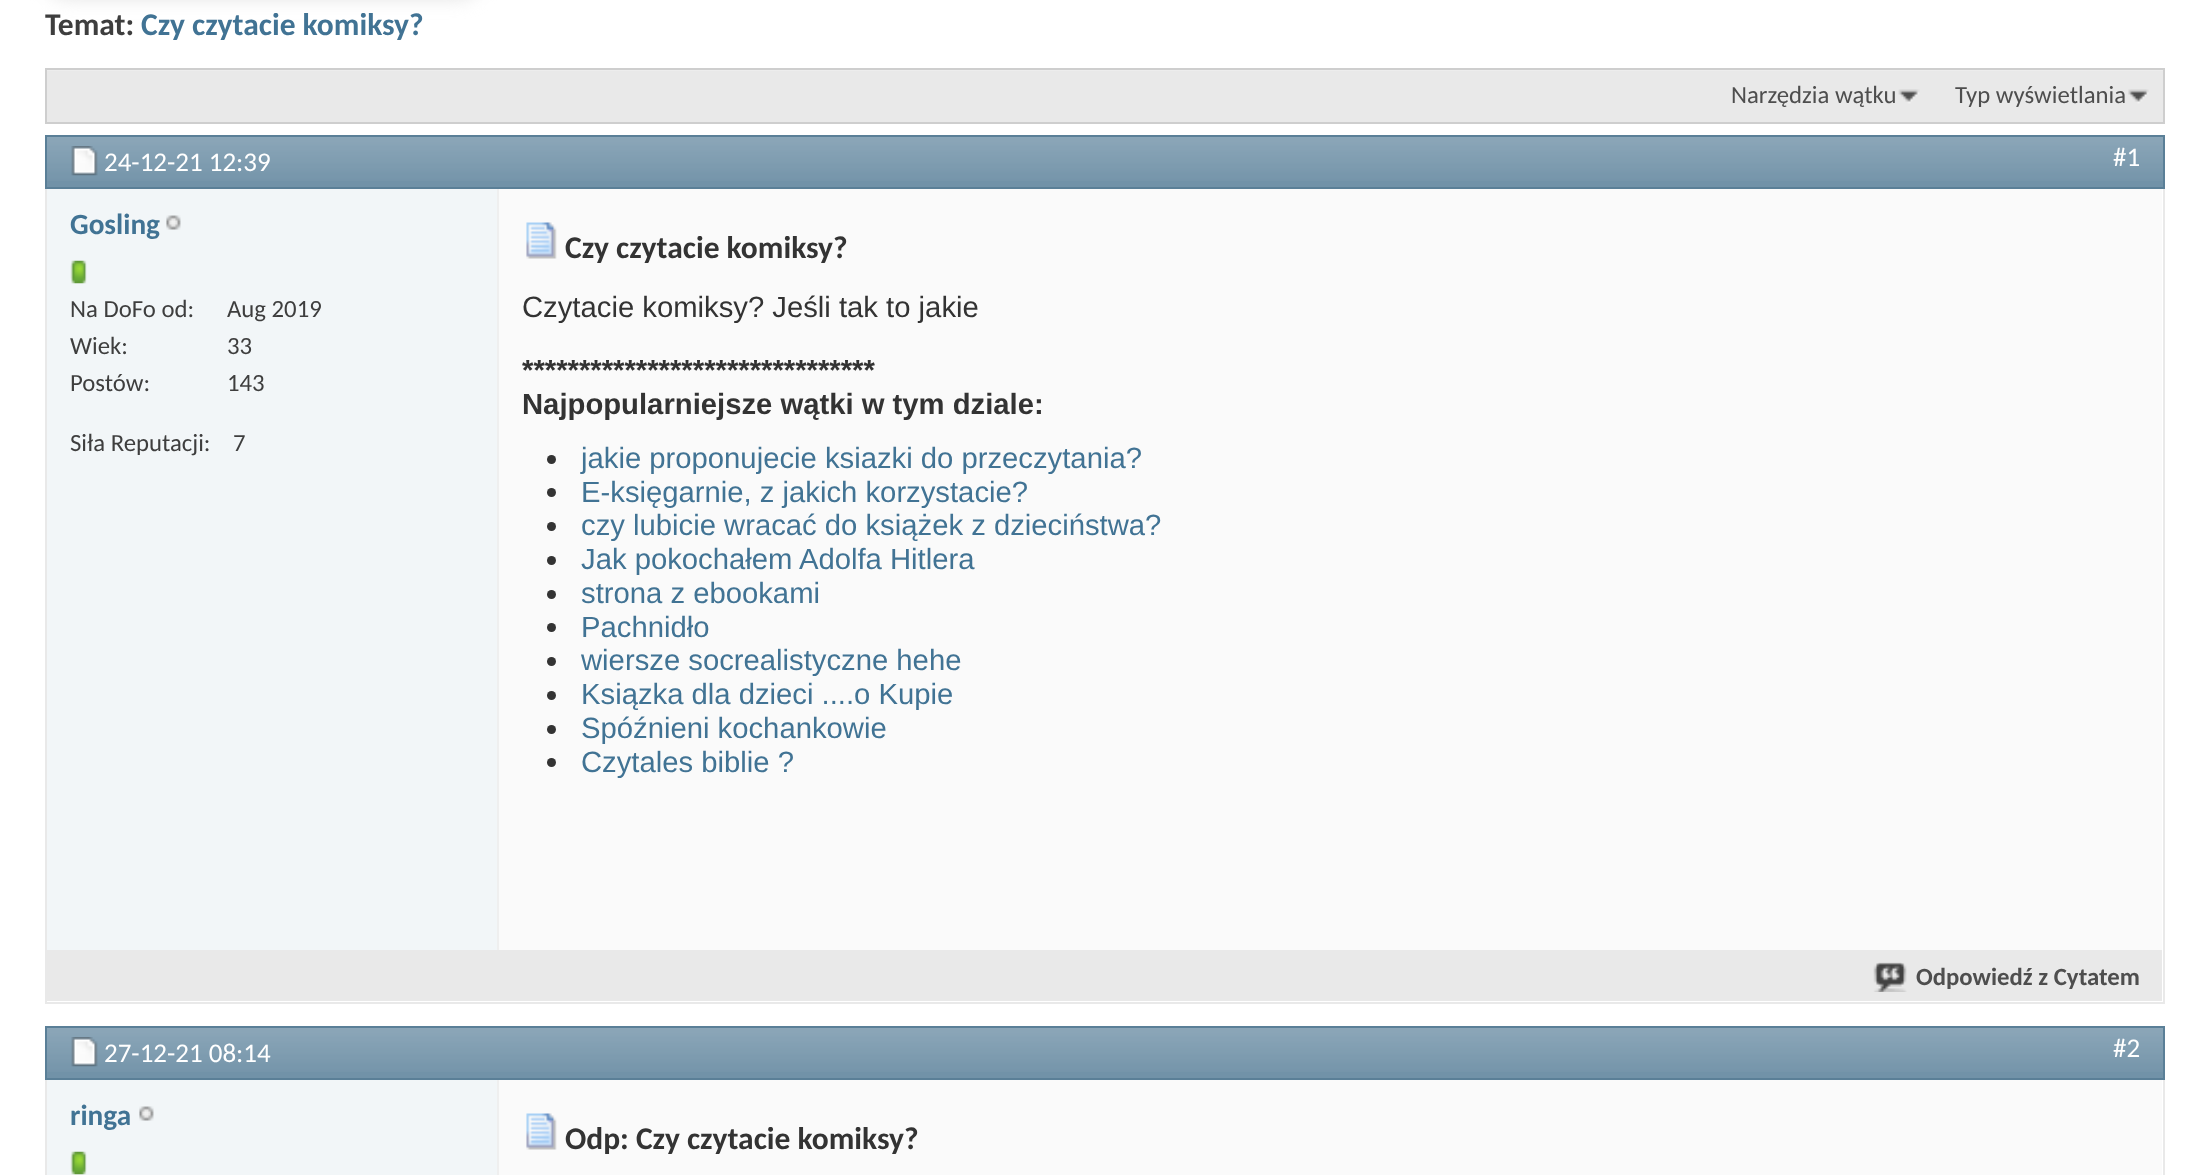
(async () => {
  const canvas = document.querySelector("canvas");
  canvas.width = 2205;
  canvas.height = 1175;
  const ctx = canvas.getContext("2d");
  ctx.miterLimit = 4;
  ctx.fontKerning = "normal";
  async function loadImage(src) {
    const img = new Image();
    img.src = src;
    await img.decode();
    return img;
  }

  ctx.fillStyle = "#ffffff";
  ctx.fillRect(0, 0, 2205, 1175);
  ctx.fillStyle = "#e1e1e1";
  ctx.filter = "blur(9px)";
  ctx.beginPath();
  ctx.roundRect(45, -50, 437, 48, 23);
  ctx.fill();
  ctx.filter = "none";
  ctx.fillStyle = "#e9e9e9";
  ctx.fillRect(47, 71, 2116, 51);
  ctx.fillStyle = "#ededed";
  ctx.fillRect(45, 70, 2119, 1);
  ctx.strokeStyle = "#cecece";
  ctx.lineWidth = 2;
  ctx.strokeRect(46, 69, 2118, 54);
  ctx.drawImage(await loadImage("img/1.png"), 1898, 89, 22, 15);
  ctx.drawImage(await loadImage("img/2.png"), 2128, 89, 21, 15);
  ctx.strokeStyle = "#e9e9e9";
  ctx.strokeRect(46, 136, 2118, 867);
  ctx.fillStyle = "#7192a8";
  ctx.fillRect(47, 137, 2116, 50);
  ctx.drawImage(await loadImage("img/3.png"), 47, 137, 2116, 44);
  ctx.strokeStyle = "#5a7f97";
  ctx.strokeRect(46, 136, 2118, 52);
  ctx.drawImage(await loadImage("img/4.png"), 71, 146, 27, 30);
  ctx.fillStyle = "#f2f6f8";
  ctx.fillRect(47, 189, 450, 761);
  ctx.drawImage(await loadImage("img/5.png"), 166, 215, 15, 15);
  ctx.drawImage(await loadImage("img/6.png"), 70, 260, 17, 24);
  ctx.fillStyle = "#fafafa";
  ctx.fillRect(499, 189, 1663, 761);
  ctx.fillStyle = "#efefef";
  ctx.fillRect(497, 189, 2, 761);
  ctx.drawImage(await loadImage("img/7.png"), 526, 222, 31, 37);
  ctx.fillStyle = "#333333";
  ctx.beginPath();
  ctx.arc(551.5, 459.5, 4.5, 0, Math.PI * 2);
  ctx.fill();
  ctx.beginPath();
  ctx.arc(551.5, 492.5, 4.5, 0, Math.PI * 2);
  ctx.fill();
  ctx.beginPath();
  ctx.arc(551.5, 526.5, 4.5, 0, Math.PI * 2);
  ctx.fill();
  ctx.beginPath();
  ctx.arc(551.5, 560.5, 4.5, 0, Math.PI * 2);
  ctx.fill();
  ctx.beginPath();
  ctx.arc(551.5, 594.5, 4.5, 0, Math.PI * 2);
  ctx.fill();
  ctx.beginPath();
  ctx.arc(551.5, 627.5, 4.5, 0, Math.PI * 2);
  ctx.fill();
  ctx.beginPath();
  ctx.arc(551.5, 661.5, 4.5, 0, Math.PI * 2);
  ctx.fill();
  ctx.beginPath();
  ctx.arc(551.5, 695.5, 4.5, 0, Math.PI * 2);
  ctx.fill();
  ctx.beginPath();
  ctx.arc(551.5, 729.5, 4.5, 0, Math.PI * 2);
  ctx.fill();
  ctx.beginPath();
  ctx.arc(551.5, 762.5, 4.5, 0, Math.PI * 2);
  ctx.fill();
  ctx.fillStyle = "#e9e9e9";
  ctx.fillRect(47, 950, 2115, 51);
  ctx.drawImage(await loadImage("img/8.png"), 1873, 962, 34, 30);
  ctx.strokeStyle = "#e9e9e9";
  ctx.strokeRect(46, 1027, 2118, 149);
  ctx.fillStyle = "#7192a8";
  ctx.fillRect(47, 1028, 2116, 50);
  ctx.drawImage(await loadImage("img/3.png"), 47, 1028, 2116, 44);
  ctx.strokeStyle = "#5a7f97";
  ctx.strokeRect(46, 1027, 2118, 52);
  ctx.drawImage(await loadImage("img/4.png"), 71, 1037, 27, 30);
  ctx.fillStyle = "#f2f6f8";
  ctx.fillRect(47, 1080, 450, 95);
  ctx.drawImage(await loadImage("img/5.png"), 139, 1106, 15, 15);
  ctx.drawImage(await loadImage("img/6.png"), 70, 1151, 17, 24);
  ctx.fillStyle = "#fafafa";
  ctx.fillRect(499, 1080, 1663, 95);
  ctx.fillStyle = "#efefef";
  ctx.fillRect(497, 1080, 2, 95);
  ctx.drawImage(await loadImage("img/7.png"), 526, 1113, 31, 37);
  ctx.font = "bold 31.5px Carlito";
  ctx.fillStyle = "#3e3e3e";
  ctx.fillText("Temat:", 45, 35);
  ctx.fillStyle = "#417394";
  ctx.fillText("Czy czytacie komiksy?", 141, 35);
  ctx.font = "24.75px Carlito";
  ctx.fillStyle = "#4e4e4e";
  ctx.fillText("Narzędzia wątku", 1731, 103);
  ctx.fillText("Typ wyświetlania", 1955, 103);
  ctx.font = "27px Carlito";
  ctx.fillStyle = "#ffffff";
  ctx.fillText("24-12-21 12:39", 104, 171);
  ctx.fillText("#1", 2113, 166);
  ctx.font = "bold 29.25px Carlito";
  ctx.fillStyle = "#417394";
  ctx.fillText("Gosling", 70, 234);
  ctx.font = "24.75px Carlito";
  ctx.fillStyle = "#3e3e3e";
  for (const [text, x, y] of [
    ["Na DoFo od:", 70, 317],
    ["Aug 2019", 227, 317],
    ["Wiek:", 70, 354],
    ["33", 227, 354],
    ["Postów:", 70, 391],
    ["143", 227, 391],
    ["Siła Reputacji:", 70, 451],
    ["7", 233, 451],
  ]) {
    ctx.fillText(text, x, y);
  }
  ctx.font = "bold 31.5px Carlito";
  ctx.fillStyle = "#333333";
  ctx.fillText("Czy czytacie komiksy?", 565, 258);
  ctx.font = "29.25px Liberation Sans";
  ctx.fillText("Czytacie komiksy? Jeśli tak to jakie", 522, 317);
  ctx.font = "bold 29.25px Liberation Sans";
  ctx.fillText("*******************************", 522, 380);
  ctx.fillText("Najpopularniejsze wątki w tym dziale:", 522, 414);
  ctx.font = "29.25px Liberation Sans";
  ctx.fillStyle = "#417394";
  for (const [text, x, y] of [
    ["jakie proponujecie ksiazki do przeczytania?", 581, 468],
    ["E-księgarnie, z jakich korzystacie?", 581, 502],
    ["czy lubicie wracać do książek z dzieciństwa?", 581, 535],
    ["Jak pokochałem Adolfa Hitlera", 581, 569],
    ["strona z ebookami", 581, 603],
    ["Pachnidło", 581, 637],
    ["wiersze socrealistyczne hehe", 581, 670],
    ["Ksiązka dla dzieci ....o Kupie", 581, 704],
    ["Spóźnieni kochankowie", 581, 738],
    ["Czytales biblie ?", 581, 772],
  ]) {
    ctx.fillText(text, x, y);
  }
  ctx.font = "bold 24.75px Carlito";
  ctx.fillStyle = "#4e4e4e";
  ctx.fillText("Odpowiedź z Cytatem", 1916, 985);
  ctx.font = "27px Carlito";
  ctx.fillStyle = "#ffffff";
  ctx.fillText("27-12-21 08:14", 104, 1062);
  ctx.fillText("#2", 2113, 1057);
  ctx.font = "bold 29.25px Carlito";
  ctx.fillStyle = "#417394";
  ctx.fillText("ringa", 70, 1125);
  ctx.font = "bold 31.5px Carlito";
  ctx.fillStyle = "#333333";
  ctx.fillText("Odp: Czy czytacie komiksy?", 565, 1149);
})();
